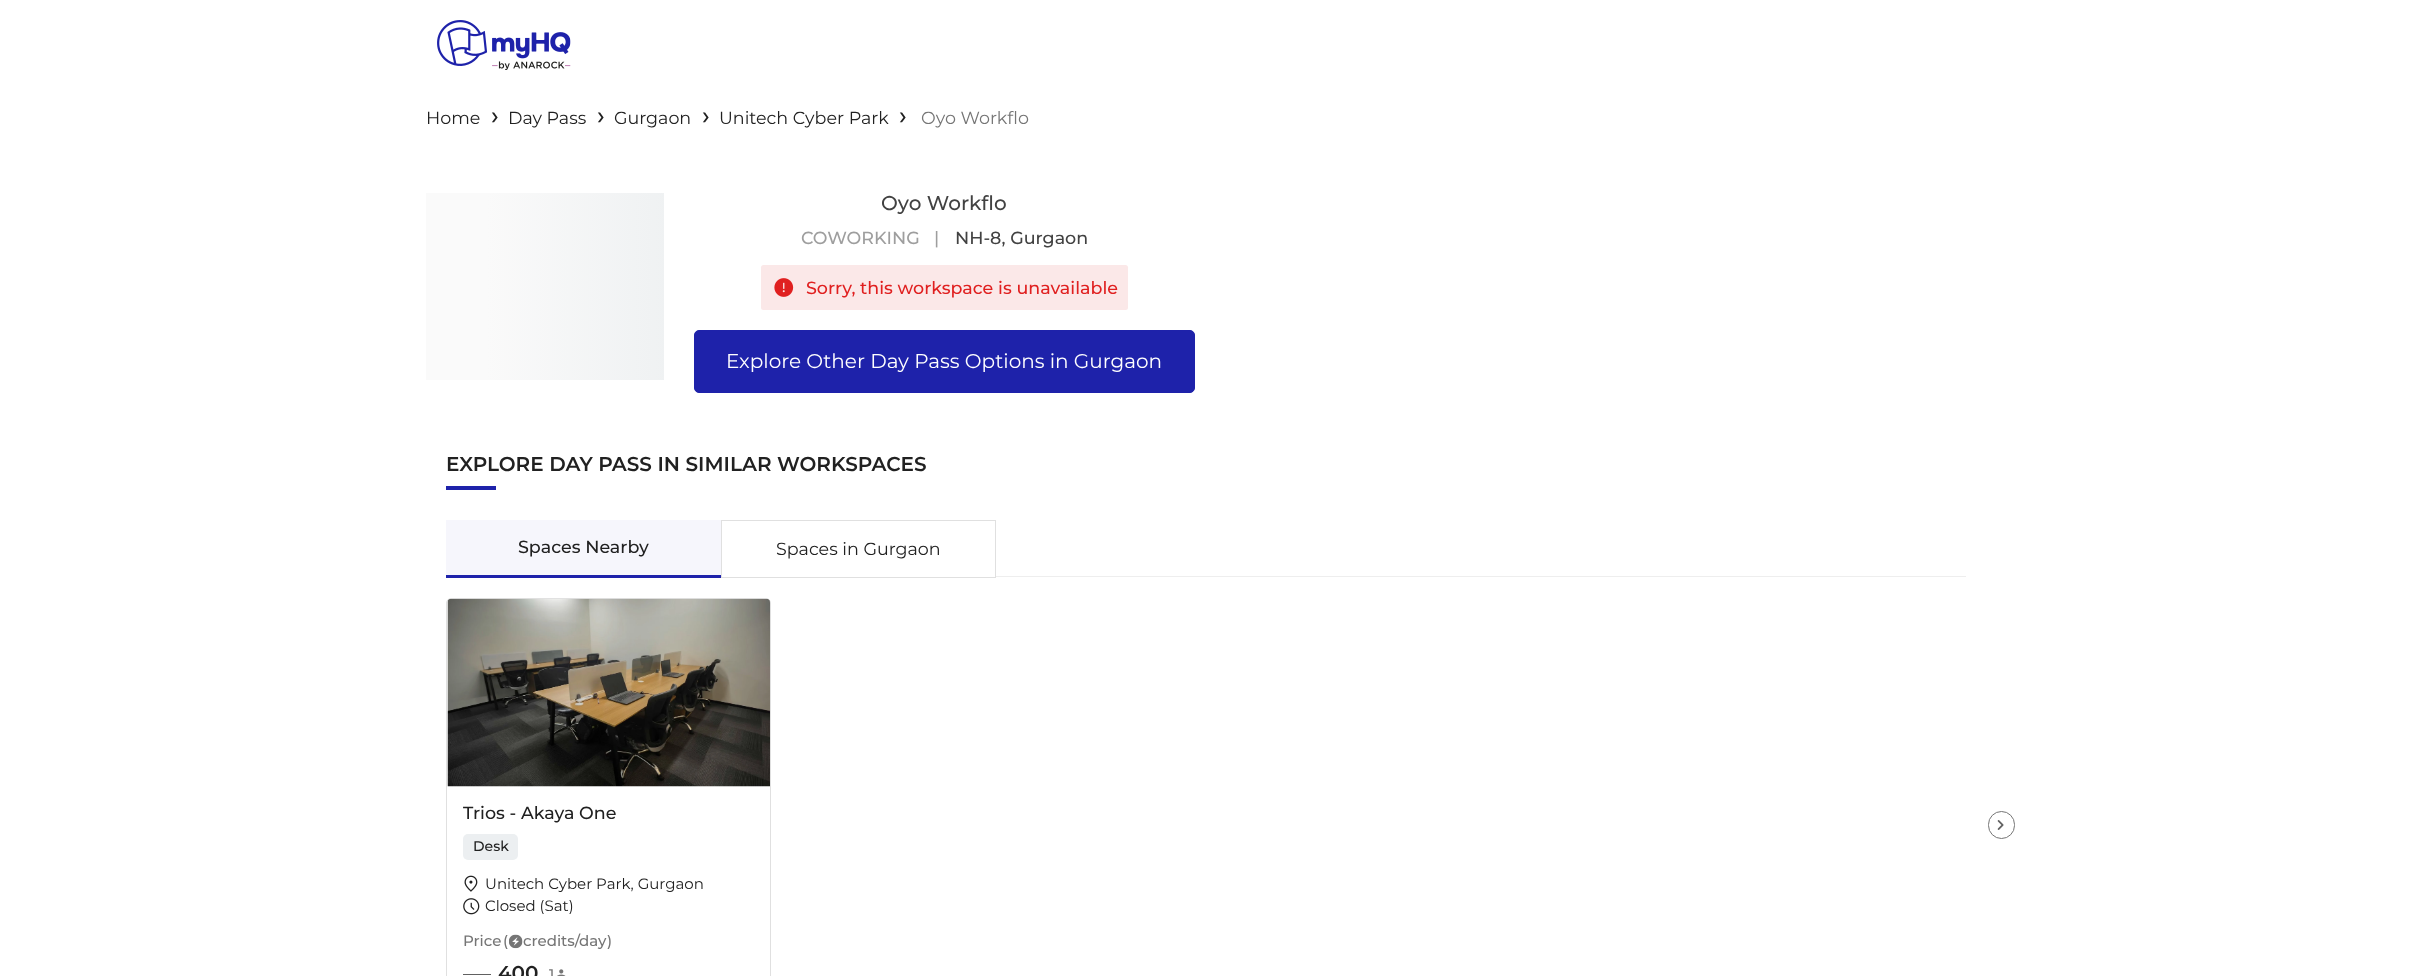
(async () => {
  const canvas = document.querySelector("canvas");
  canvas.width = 2412;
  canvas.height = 976;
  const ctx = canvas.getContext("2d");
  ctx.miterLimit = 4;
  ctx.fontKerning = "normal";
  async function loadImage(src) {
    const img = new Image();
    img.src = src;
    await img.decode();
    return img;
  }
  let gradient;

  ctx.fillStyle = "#ffffff";
  ctx.fillRect(0, 0, 2412, 976);
  ctx.drawImage(await loadImage("img/1.png"), 437, 20, 134, 50);
  gradient = ctx.createLinearGradient(426, 286, 1926, 286);
  gradient.addColorStop(0.04, "#fafafa");
  gradient.addColorStop(0.25, "#e7ebed");
  gradient.addColorStop(0.36, "#fafafa");
  ctx.fillStyle = gradient;
  ctx.fillRect(426, 193, 238, 187);
  ctx.fillStyle = "#fbe8e8";
  ctx.beginPath();
  ctx.roundRect(761, 265, 367, 45, 2.5);
  ctx.fill();
  ctx.drawImage(await loadImage("img/2.png"), 774, 278, 20, 19);
  ctx.fillStyle = "#1e22aa";
  ctx.beginPath();
  ctx.roundRect(694.5, 330.5, 500, 62, 4.5);
  ctx.fill();
  ctx.strokeStyle = "#1e22aa";
  ctx.stroke();
  for (const [x, y, w, h, color] of [
    [446, 486, 50, 4, "#1e22aa"],
    [446, 520, 275, 55, "#f6f6fc"],
    [446, 575, 275, 3, "#1e22aa"],
  ]) {
    ctx.fillStyle = color;
    ctx.fillRect(x, y, w, h);
  }
  ctx.strokeStyle = "#e0e0e0";
  ctx.strokeRect(721.5, 520.5, 274, 57);
  ctx.fillStyle = "#eeeeee";
  ctx.fillRect(996, 576, 970, 1);
  ctx.beginPath();
  ctx.roundRect(446.5, 598.5, 324, 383, 4.5);
  ctx.stroke();
  ctx.drawImage(await loadImage("img/3.png"), 447, 598, 323, 189);
  ctx.fillStyle = "#eceff1";
  ctx.beginPath();
  ctx.roundRect(463, 834, 55, 26, 5);
  ctx.fill();
  ctx.drawImage(await loadImage("img/4.png"), 464, 875, 14, 17);
  ctx.drawImage(await loadImage("img/5.png"), 463, 898, 17, 17);
  ctx.drawImage(await loadImage("img/6.png"), 509, 934, 14, 15);
  ctx.fillStyle = "#616161";
  ctx.fillRect(463, 974, 28, 1);
  ctx.drawImage(await loadImage("img/7.png"), 557, 969, 9, 7);
  ctx.beginPath();
  ctx.roundRect(1988.5, 811.5, 26, 27, 13);
  ctx.strokeStyle = "#757575";
  ctx.stroke();
  ctx.drawImage(await loadImage("img/8.png"), 1997, 820, 7, 10);
  ctx.font = "17.5px Montserrat";
  ctx.fillStyle = "#212121";
  ctx.fillText("Home", 426, 124);
  ctx.font = "500 25px Montserrat";
  ctx.fillText("›", 491, 124);
  ctx.font = "17.5px Montserrat";
  ctx.fillText("Day Pass", 508, 124);
  ctx.font = "500 25px Montserrat";
  ctx.fillText("›", 597, 124);
  ctx.font = "17.5px Montserrat";
  ctx.fillText("Gurgaon", 614, 124);
  ctx.font = "500 25px Montserrat";
  ctx.fillText("›", 702, 124);
  ctx.font = "17.5px Montserrat";
  ctx.fillText("Unitech Cyber Park", 719, 124);
  ctx.font = "500 25px Montserrat";
  ctx.fillText("›", 899, 124);
  ctx.font = "17.5px Montserrat";
  ctx.fillStyle = "#757575";
  ctx.fillText("Oyo Workflo", 921, 124);
  ctx.font = "500 20px Montserrat";
  ctx.fillStyle = "#424242";
  ctx.fillText("Oyo Workflo", 881, 210);
  ctx.font = "500 17.5px Montserrat";
  ctx.fillStyle = "#9e9e9e";
  ctx.fillText("COWORKING", 801, 244);
  ctx.fillText("|", 934, 244);
  ctx.fillStyle = "#424242";
  ctx.fillText("NH-8, Gurgaon", 955, 244);
  ctx.fillStyle = "#e02020";
  ctx.fillText("Sorry, this workspace is unavailable", 806, 294);
  ctx.font = "20px Montserrat";
  ctx.fillStyle = "#ffffff";
  ctx.fillText("Explore Other Day Pass Options in Gurgaon", 726, 368);
  ctx.font = "600 20px Montserrat";
  ctx.fillStyle = "#212121";
  ctx.fillText("EXPLORE DAY PASS IN SIMILAR WORKSPACES", 446, 471);
  ctx.font = "500 17.5px Montserrat";
  ctx.fillText("Spaces Nearby", 518, 553);
  ctx.font = "17.5px Montserrat";
  ctx.fillText("Spaces in Gurgaon", 776, 555);
  ctx.save();
  ctx.beginPath();
  ctx.rect(463, 801, 292, 23);
  ctx.clip();
  ctx.font = "500 17.5px Montserrat";
  ctx.fillText("Trios - Akaya One", 463, 819);
  ctx.restore();
  ctx.font = "500 14px Montserrat";
  ctx.fillText("Desk", 473, 851);
  ctx.font = "15px Montserrat";
  ctx.fillText("Unitech Cyber Park, Gurgaon", 485, 889);
  ctx.fillText("Closed (Sat)", 485, 911);
  ctx.font = "500 15px Montserrat";
  ctx.fillStyle = "#757575";
  for (const [text, x, y] of [
    ["Price", 463, 946],
    ["(", 503, 946],
    ["credits/day", 523, 946],
    [")", 607, 946],
  ]) {
    ctx.fillText(text, x, y);
  }
  ctx.font = "600 20px Montserrat";
  ctx.fillStyle = "#212121";
  ctx.fillText("400", 498, 980);
  ctx.font = "500 14px Montserrat";
  ctx.fillStyle = "#757575";
  ctx.fillText("1", 549, 979);
})();
